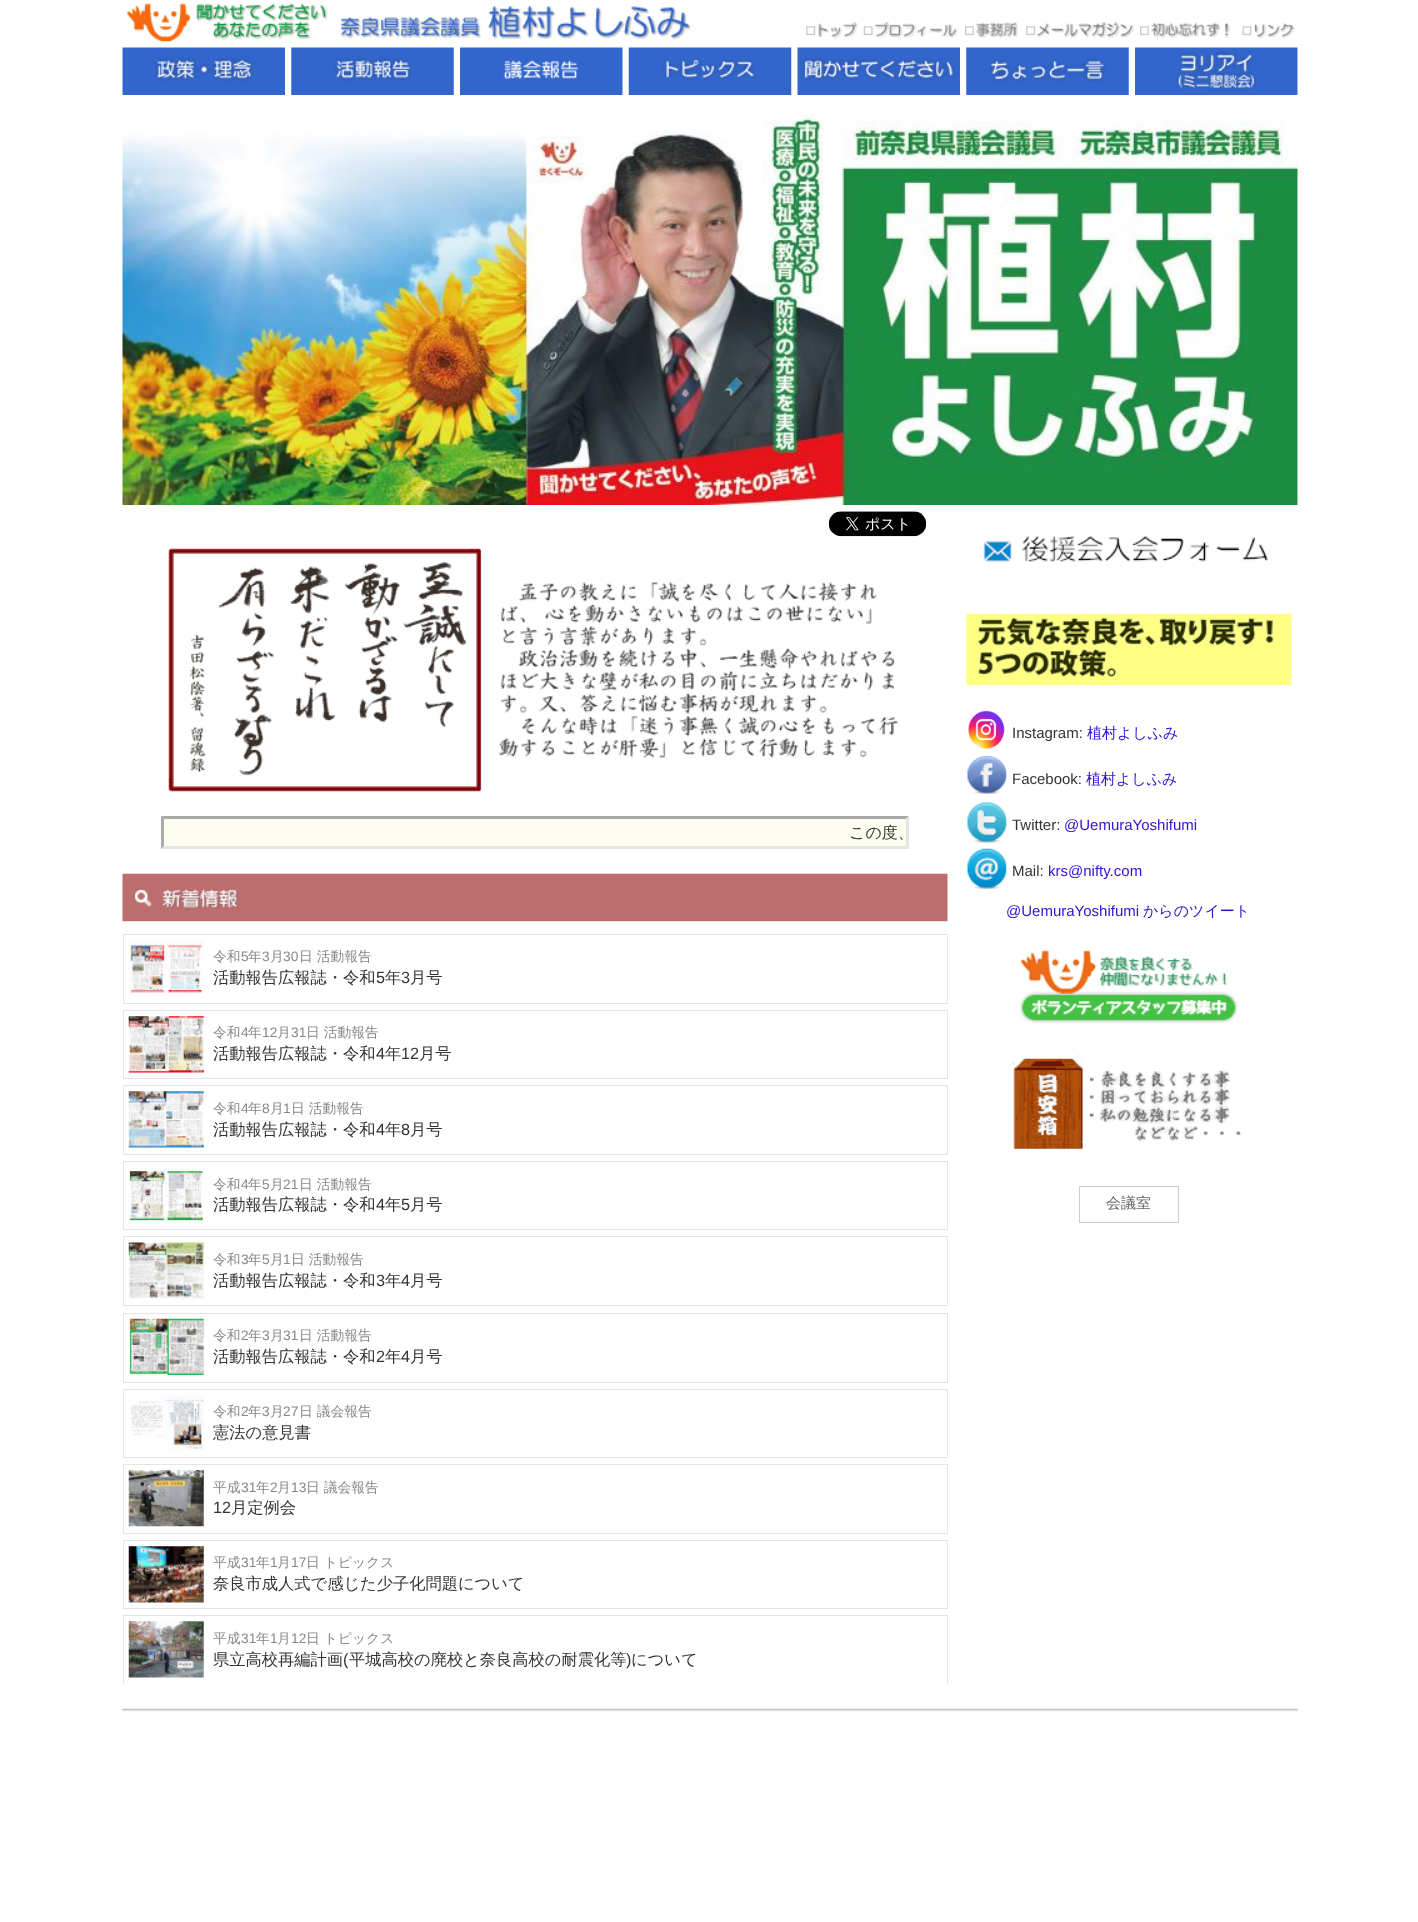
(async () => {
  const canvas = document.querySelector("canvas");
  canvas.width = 1418;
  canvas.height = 1922;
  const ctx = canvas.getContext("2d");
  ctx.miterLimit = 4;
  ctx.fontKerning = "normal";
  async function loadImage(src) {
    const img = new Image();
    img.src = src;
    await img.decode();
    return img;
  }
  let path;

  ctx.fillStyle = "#ffffff";
  ctx.fillRect(0, 0, 1418, 1922);
  ctx.drawImage(await loadImage("img/1.png"), 127, 3, 565, 39);
  ctx.drawImage(await loadImage("img/2.png"), 806, 22, 52, 17);
  ctx.drawImage(await loadImage("img/3.png"), 863, 22, 95, 16);
  ctx.drawImage(await loadImage("img/4.png"), 965, 22, 53, 16);
  ctx.drawImage(await loadImage("img/5.png"), 1026, 22, 108, 16);
  ctx.drawImage(await loadImage("img/6.png"), 1140, 22, 90, 16);
  ctx.drawImage(await loadImage("img/7.png"), 1242, 23, 53, 16);
  ctx.drawImage(await loadImage("img/8.png"), 122, 47, 163, 48);
  ctx.drawImage(await loadImage("img/9.png"), 291, 47, 163, 48);
  ctx.drawImage(await loadImage("img/10.png"), 460, 47, 163, 48);
  ctx.drawImage(await loadImage("img/11.png"), 628, 47, 164, 48);
  ctx.drawImage(await loadImage("img/12.png"), 797, 47, 163, 48);
  ctx.drawImage(await loadImage("img/13.png"), 966, 47, 163, 48);
  ctx.drawImage(await loadImage("img/14.png"), 1135, 47, 163, 48);
  ctx.drawImage(await loadImage("img/15.png"), 122, 102, 1176, 403);
  ctx.drawImage(await loadImage("img/16.png"), 828, 511, 99, 26);
  ctx.drawImage(await loadImage("img/17.png"), 168, 548, 314, 244);
  ctx.drawImage(await loadImage("img/18.png"), 481, 549, 417, 242);
  ctx.fillStyle = "#fdfdf0";
  ctx.fillRect(161, 816, 748, 33);
  ctx.fillStyle = "#aaaaaa";
  path = new Path2D("M161 816H909L906 819H164Z");
  ctx.fill(path);
  ctx.fillStyle = "#e5e5e5";
  path = new Path2D("M909 816V849L906 846V819Z");
  ctx.fill(path);
  path = new Path2D("M909 849H161L164 846H906Z");
  ctx.fill(path);
  ctx.fillStyle = "#aaaaaa";
  path = new Path2D("M161 849V816L164 819V846Z");
  ctx.fill(path);
  ctx.drawImage(await loadImage("img/19.png"), 122, 873, 826, 49);
  ctx.strokeStyle = "#e5e5e5";
  ctx.strokeRect(123.5, 934.5, 824, 69);
  ctx.drawImage(await loadImage("img/20.png"), 128, 940, 76, 56);
  ctx.strokeRect(123.5, 1010.5, 824, 68);
  ctx.drawImage(await loadImage("img/21.png"), 128, 1016, 76, 57);
  ctx.strokeRect(123.5, 1085.5, 824, 69);
  ctx.drawImage(await loadImage("img/22.png"), 128, 1091, 76, 57);
  ctx.strokeRect(123.5, 1161.5, 824, 68);
  ctx.drawImage(await loadImage("img/23.png"), 128, 1167, 76, 57);
  ctx.strokeRect(123.5, 1236.5, 824, 69);
  ctx.drawImage(await loadImage("img/24.png"), 128, 1242, 76, 57);
  ctx.strokeRect(123.5, 1313.5, 824, 69);
  ctx.drawImage(await loadImage("img/25.png"), 128, 1318, 76, 57);
  ctx.strokeRect(123.5, 1389.5, 824, 68);
  ctx.drawImage(await loadImage("img/26.png"), 129, 1395, 75, 56);
  ctx.strokeRect(123.5, 1464.5, 824, 69);
  ctx.drawImage(await loadImage("img/27.png"), 128, 1470, 76, 57);
  ctx.strokeRect(123.5, 1540.5, 824, 68);
  ctx.drawImage(await loadImage("img/28.png"), 128, 1546, 76, 57);
  ctx.save();
  ctx.beginPath();
  ctx.rect(123, 934, 825, 750);
  ctx.clip();
  ctx.strokeRect(123.5, 1615.5, 824, 69);
  ctx.restore();
  ctx.drawImage(await loadImage("img/29.png"), 128, 1621, 76, 57);
  ctx.drawImage(await loadImage("img/30.png"), 983, 536, 285, 26);
  ctx.drawImage(await loadImage("img/31.png"), 966, 613, 326, 72);
  ctx.drawImage(await loadImage("img/32.png"), 968, 710, 37, 39);
  ctx.drawImage(await loadImage("img/33.png"), 967, 756, 40, 38);
  ctx.drawImage(await loadImage("img/34.png"), 967, 802, 40, 41);
  ctx.drawImage(await loadImage("img/35.png"), 967, 848, 40, 41);
  ctx.drawImage(await loadImage("img/36.png"), 1020, 950, 219, 74);
  ctx.drawImage(await loadImage("img/37.png"), 1012, 1055, 229, 94);
  ctx.strokeStyle = "#cccccc";
  ctx.strokeRect(1079.5, 1186.5, 99, 36);
  ctx.drawImage(await loadImage("img/38.png"), 122, 1708, 1176, 4);
  ctx.font = "500 16px WenQuanYi Zen Hei";
  ctx.fillStyle = "#333333";
  ctx.fillText("この度、", 849, 838);
  ctx.font = "500 13.75px WenQuanYi Zen Hei";
  ctx.fillStyle = "#888888";
  ctx.fillText("令和", 213, 961);
  ctx.font = "13.75px Liberation Sans";
  ctx.fillText("5", 241, 961);
  ctx.font = "500 13.75px WenQuanYi Zen Hei";
  ctx.fillText("年", 248, 961);
  ctx.font = "13.75px Liberation Sans";
  ctx.fillText("3", 262, 961);
  ctx.font = "500 13.75px WenQuanYi Zen Hei";
  ctx.fillText("月", 270, 961);
  ctx.font = "13.75px Liberation Sans";
  ctx.fillText("30", 283, 961);
  ctx.font = "500 13.75px WenQuanYi Zen Hei";
  ctx.fillText("日 活動報告", 299, 961);
  ctx.font = "500 16.25px WenQuanYi Zen Hei";
  ctx.fillStyle = "#333333";
  ctx.fillText("活動報告広報誌・令和", 213, 983);
  ctx.font = "16.25px Liberation Sans";
  ctx.fillText("5", 376, 983);
  ctx.font = "500 16.25px WenQuanYi Zen Hei";
  ctx.fillText("年", 385, 983);
  ctx.font = "16.25px Liberation Sans";
  ctx.fillText("3", 401, 983);
  ctx.font = "500 16.25px WenQuanYi Zen Hei";
  ctx.fillText("月号", 410, 983);
  ctx.font = "500 13.75px WenQuanYi Zen Hei";
  ctx.fillStyle = "#888888";
  ctx.fillText("令和", 213, 1037);
  ctx.font = "13.75px Liberation Sans";
  ctx.fillText("4", 241, 1037);
  ctx.font = "500 13.75px WenQuanYi Zen Hei";
  ctx.fillText("年", 248, 1037);
  ctx.font = "13.75px Liberation Sans";
  ctx.fillText("12", 262, 1037);
  ctx.font = "500 13.75px WenQuanYi Zen Hei";
  ctx.fillText("月", 277, 1037);
  ctx.font = "13.75px Liberation Sans";
  ctx.fillText("31", 291, 1037);
  ctx.font = "500 13.75px WenQuanYi Zen Hei";
  ctx.fillText("日 活動報告", 306, 1037);
  ctx.font = "500 16.25px WenQuanYi Zen Hei";
  ctx.fillStyle = "#333333";
  ctx.fillText("活動報告広報誌・令和", 213, 1059);
  ctx.font = "16.25px Liberation Sans";
  ctx.fillText("4", 376, 1059);
  ctx.font = "500 16.25px WenQuanYi Zen Hei";
  ctx.fillText("年", 385, 1059);
  ctx.font = "16.25px Liberation Sans";
  ctx.fillText("12", 401, 1059);
  ctx.font = "500 16.25px WenQuanYi Zen Hei";
  ctx.fillText("月号", 419, 1059);
  ctx.font = "500 13.75px WenQuanYi Zen Hei";
  ctx.fillStyle = "#888888";
  ctx.fillText("令和", 213, 1113);
  ctx.font = "13.75px Liberation Sans";
  ctx.fillText("4", 241, 1113);
  ctx.font = "500 13.75px WenQuanYi Zen Hei";
  ctx.fillText("年", 248, 1113);
  ctx.font = "13.75px Liberation Sans";
  ctx.fillText("8", 262, 1113);
  ctx.font = "500 13.75px WenQuanYi Zen Hei";
  ctx.fillText("月", 270, 1113);
  ctx.font = "13.75px Liberation Sans";
  ctx.fillText("1", 283, 1113);
  ctx.font = "500 13.75px WenQuanYi Zen Hei";
  ctx.fillText("日 活動報告", 291, 1113);
  ctx.font = "500 16.25px WenQuanYi Zen Hei";
  ctx.fillStyle = "#333333";
  ctx.fillText("活動報告広報誌・令和", 213, 1135);
  ctx.font = "16.25px Liberation Sans";
  ctx.fillText("4", 376, 1135);
  ctx.font = "500 16.25px WenQuanYi Zen Hei";
  ctx.fillText("年", 385, 1135);
  ctx.font = "16.25px Liberation Sans";
  ctx.fillText("8", 401, 1135);
  ctx.font = "500 16.25px WenQuanYi Zen Hei";
  ctx.fillText("月号", 410, 1135);
  ctx.font = "500 13.75px WenQuanYi Zen Hei";
  ctx.fillStyle = "#888888";
  ctx.fillText("令和", 213, 1189);
  ctx.font = "13.75px Liberation Sans";
  ctx.fillText("4", 241, 1189);
  ctx.font = "500 13.75px WenQuanYi Zen Hei";
  ctx.fillText("年", 248, 1189);
  ctx.font = "13.75px Liberation Sans";
  ctx.fillText("5", 262, 1189);
  ctx.font = "500 13.75px WenQuanYi Zen Hei";
  ctx.fillText("月", 270, 1189);
  ctx.font = "13.75px Liberation Sans";
  ctx.fillText("21", 283, 1189);
  ctx.font = "500 13.75px WenQuanYi Zen Hei";
  ctx.fillText("日 活動報告", 299, 1189);
  ctx.font = "500 16.25px WenQuanYi Zen Hei";
  ctx.fillStyle = "#333333";
  ctx.fillText("活動報告広報誌・令和", 213, 1210);
  ctx.font = "16.25px Liberation Sans";
  ctx.fillText("4", 376, 1210);
  ctx.font = "500 16.25px WenQuanYi Zen Hei";
  ctx.fillText("年", 385, 1210);
  ctx.font = "16.25px Liberation Sans";
  ctx.fillText("5", 401, 1210);
  ctx.font = "500 16.25px WenQuanYi Zen Hei";
  ctx.fillText("月号", 410, 1210);
  ctx.font = "500 13.75px WenQuanYi Zen Hei";
  ctx.fillStyle = "#888888";
  ctx.fillText("令和", 213, 1264);
  ctx.font = "13.75px Liberation Sans";
  ctx.fillText("3", 241, 1264);
  ctx.font = "500 13.75px WenQuanYi Zen Hei";
  ctx.fillText("年", 248, 1264);
  ctx.font = "13.75px Liberation Sans";
  ctx.fillText("5", 262, 1264);
  ctx.font = "500 13.75px WenQuanYi Zen Hei";
  ctx.fillText("月", 270, 1264);
  ctx.font = "13.75px Liberation Sans";
  ctx.fillText("1", 283, 1264);
  ctx.font = "500 13.75px WenQuanYi Zen Hei";
  ctx.fillText("日 活動報告", 291, 1264);
  ctx.font = "500 16.25px WenQuanYi Zen Hei";
  ctx.fillStyle = "#333333";
  ctx.fillText("活動報告広報誌・令和", 213, 1286);
  ctx.font = "16.25px Liberation Sans";
  ctx.fillText("3", 376, 1286);
  ctx.font = "500 16.25px WenQuanYi Zen Hei";
  ctx.fillText("年", 385, 1286);
  ctx.font = "16.25px Liberation Sans";
  ctx.fillText("4", 401, 1286);
  ctx.font = "500 16.25px WenQuanYi Zen Hei";
  ctx.fillText("月号", 410, 1286);
  ctx.font = "500 13.75px WenQuanYi Zen Hei";
  ctx.fillStyle = "#888888";
  ctx.fillText("令和", 213, 1340);
  ctx.font = "13.75px Liberation Sans";
  ctx.fillText("2", 241, 1340);
  ctx.font = "500 13.75px WenQuanYi Zen Hei";
  ctx.fillText("年", 248, 1340);
  ctx.font = "13.75px Liberation Sans";
  ctx.fillText("3", 262, 1340);
  ctx.font = "500 13.75px WenQuanYi Zen Hei";
  ctx.fillText("月", 270, 1340);
  ctx.font = "13.75px Liberation Sans";
  ctx.fillText("31", 283, 1340);
  ctx.font = "500 13.75px WenQuanYi Zen Hei";
  ctx.fillText("日 活動報告", 299, 1340);
  ctx.font = "500 16.25px WenQuanYi Zen Hei";
  ctx.fillStyle = "#333333";
  ctx.fillText("活動報告広報誌・令和", 213, 1362);
  ctx.font = "16.25px Liberation Sans";
  ctx.fillText("2", 376, 1362);
  ctx.font = "500 16.25px WenQuanYi Zen Hei";
  ctx.fillText("年", 385, 1362);
  ctx.font = "16.25px Liberation Sans";
  ctx.fillText("4", 401, 1362);
  ctx.font = "500 16.25px WenQuanYi Zen Hei";
  ctx.fillText("月号", 410, 1362);
  ctx.font = "500 13.75px WenQuanYi Zen Hei";
  ctx.fillStyle = "#888888";
  ctx.fillText("令和", 213, 1416);
  ctx.font = "13.75px Liberation Sans";
  ctx.fillText("2", 241, 1416);
  ctx.font = "500 13.75px WenQuanYi Zen Hei";
  ctx.fillText("年", 248, 1416);
  ctx.font = "13.75px Liberation Sans";
  ctx.fillText("3", 262, 1416);
  ctx.font = "500 13.75px WenQuanYi Zen Hei";
  ctx.fillText("月", 270, 1416);
  ctx.font = "13.75px Liberation Sans";
  ctx.fillText("27", 283, 1416);
  ctx.font = "500 13.75px WenQuanYi Zen Hei";
  ctx.fillText("日 議会報告", 299, 1416);
  ctx.font = "500 16.25px WenQuanYi Zen Hei";
  ctx.fillStyle = "#333333";
  ctx.fillText("憲法の意見書", 213, 1438);
  ctx.font = "500 13.75px WenQuanYi Zen Hei";
  ctx.fillStyle = "#888888";
  ctx.fillText("平成", 213, 1492);
  ctx.font = "13.75px Liberation Sans";
  ctx.fillText("31", 241, 1492);
  ctx.font = "500 13.75px WenQuanYi Zen Hei";
  ctx.fillText("年", 256, 1492);
  ctx.font = "13.75px Liberation Sans";
  ctx.fillText("2", 270, 1492);
  ctx.font = "500 13.75px WenQuanYi Zen Hei";
  ctx.fillText("月", 277, 1492);
  ctx.font = "13.75px Liberation Sans";
  ctx.fillText("13", 291, 1492);
  ctx.font = "500 13.75px WenQuanYi Zen Hei";
  ctx.fillText("日 議会報告", 306, 1492);
  ctx.font = "16.25px Liberation Sans";
  ctx.fillStyle = "#333333";
  ctx.fillText("12", 213, 1513);
  ctx.font = "500 16.25px WenQuanYi Zen Hei";
  ctx.fillText("月定例会", 231, 1513);
  ctx.font = "500 13.75px WenQuanYi Zen Hei";
  ctx.fillStyle = "#888888";
  ctx.fillText("平成", 213, 1567);
  ctx.font = "13.75px Liberation Sans";
  ctx.fillText("31", 241, 1567);
  ctx.font = "500 13.75px WenQuanYi Zen Hei";
  ctx.fillText("年", 256, 1567);
  ctx.font = "13.75px Liberation Sans";
  ctx.fillText("1", 270, 1567);
  ctx.font = "500 13.75px WenQuanYi Zen Hei";
  ctx.fillText("月", 277, 1567);
  ctx.font = "13.75px Liberation Sans";
  ctx.fillText("17", 291, 1567);
  ctx.font = "500 13.75px WenQuanYi Zen Hei";
  ctx.fillText("日 トピックス", 306, 1567);
  ctx.font = "500 16.25px WenQuanYi Zen Hei";
  ctx.fillStyle = "#333333";
  ctx.fillText("奈良市成人式で感じた少子化問題について", 213, 1589);
  ctx.font = "500 13.75px WenQuanYi Zen Hei";
  ctx.fillStyle = "#888888";
  ctx.fillText("平成", 213, 1643);
  ctx.font = "13.75px Liberation Sans";
  ctx.fillText("31", 241, 1643);
  ctx.font = "500 13.75px WenQuanYi Zen Hei";
  ctx.fillText("年", 256, 1643);
  ctx.font = "13.75px Liberation Sans";
  ctx.fillText("1", 270, 1643);
  ctx.font = "500 13.75px WenQuanYi Zen Hei";
  ctx.fillText("月", 277, 1643);
  ctx.font = "13.75px Liberation Sans";
  ctx.fillText("12", 291, 1643);
  ctx.font = "500 13.75px WenQuanYi Zen Hei";
  ctx.fillText("日 トピックス", 306, 1643);
  ctx.font = "500 16.25px WenQuanYi Zen Hei";
  ctx.fillStyle = "#333333";
  ctx.fillText("県立高校再編計画", 213, 1665);
  ctx.font = "16.25px Liberation Sans";
  ctx.fillText("(", 343, 1665);
  ctx.font = "500 16.25px WenQuanYi Zen Hei";
  ctx.fillText("平城高校の廃校と奈良高校の耐震化等", 349, 1665);
  ctx.font = "16.25px Liberation Sans";
  ctx.fillText(")", 626, 1665);
  ctx.font = "500 16.25px WenQuanYi Zen Hei";
  ctx.fillText("について", 631, 1665);
  ctx.font = "15px Liberation Sans";
  ctx.fillText("Instagram:", 1012, 738);
  ctx.font = "500 15px WenQuanYi Zen Hei";
  ctx.fillStyle = "#3412d3";
  ctx.fillText("植村よしふみ", 1087, 738);
  ctx.font = "15px Liberation Sans";
  ctx.fillStyle = "#333333";
  ctx.fillText("Facebook:", 1012, 784);
  ctx.font = "500 15px WenQuanYi Zen Hei";
  ctx.fillStyle = "#3412d3";
  ctx.fillText("植村よしふみ", 1086, 784);
  ctx.font = "15px Liberation Sans";
  ctx.fillStyle = "#333333";
  ctx.fillText("Twitter:", 1012, 830);
  ctx.fillStyle = "#3412d3";
  ctx.fillText("@UemuraYoshifumi", 1064, 830);
  ctx.fillStyle = "#333333";
  ctx.fillText("Mail:", 1012, 876);
  ctx.fillStyle = "#3412d3";
  ctx.fillText("krs@nifty.com", 1048, 876);
  ctx.fillText("@UemuraYoshifumi", 1006, 916);
  ctx.font = "500 15px WenQuanYi Zen Hei";
  ctx.fillText("からのツイート", 1143, 916);
  ctx.fillStyle = "#666666";
  ctx.fillText("会議室", 1106, 1208);
})();
